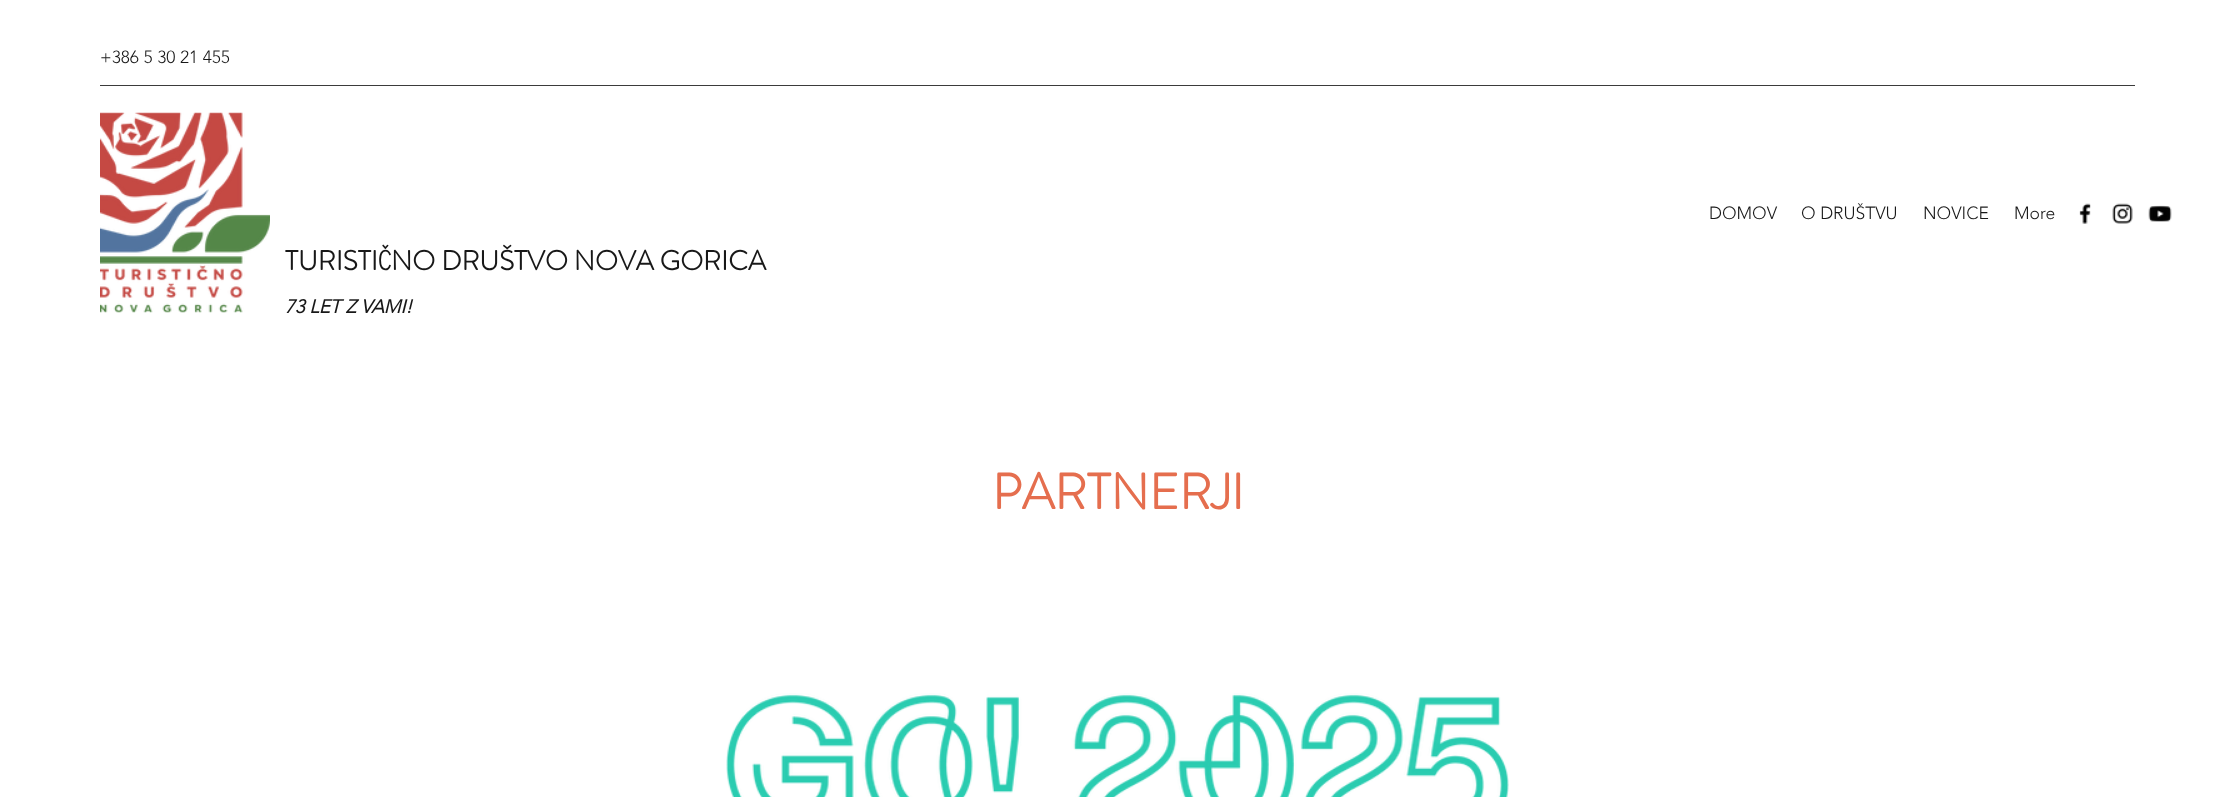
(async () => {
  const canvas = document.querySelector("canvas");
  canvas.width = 2235;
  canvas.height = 797;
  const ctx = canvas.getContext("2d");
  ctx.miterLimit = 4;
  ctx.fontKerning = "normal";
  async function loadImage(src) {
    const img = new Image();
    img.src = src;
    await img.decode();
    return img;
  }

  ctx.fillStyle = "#ffffff";
  ctx.fillRect(0, 0, 2235, 797);
  ctx.fillStyle = "#3b3b3b";
  ctx.fillRect(100, 85, 2035, 1);
  ctx.drawImage(await loadImage("img/1.png"), 2079, 203, 12, 21);
  ctx.drawImage(await loadImage("img/2.png"), 2112, 203, 21, 21);
  ctx.drawImage(await loadImage("img/3.png"), 2148, 205, 24, 17);
  ctx.drawImage(await loadImage("img/4.png"), 100, 112, 170, 201);
  ctx.drawImage(await loadImage("img/5.png"), 726, 693, 783, 104);
  ctx.font = "300 17.5px 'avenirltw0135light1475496'";
  ctx.fillStyle = "#181818";
  for (const [text, x, y] of [
    ["+386 5 30 21 455", 100, 63],
    ["DOMOV", 1709, 219],
    ["O DRUŠTVU", 1801, 219],
    ["NOVICE", 1923, 219],
    ["More", 2014, 219],
  ]) {
    ctx.fillText(text, x, y);
  }
  ctx.font = "bold 27.5px 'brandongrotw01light'";
  ctx.fillText("TURISTIČNO DRUŠTVO NOVA GORICA", 285, 270);
  ctx.font = "italic bold 18.75px 'avenirltw0135light1475496'";
  ctx.fillText("73 LET Z VAMI!", 285, 313);
  ctx.font = "bold 50px 'brandongrotw01light'";
  ctx.fillStyle = "#e56e4e";
  ctx.fillText("PARTNERJI", 992, 509);
})();
